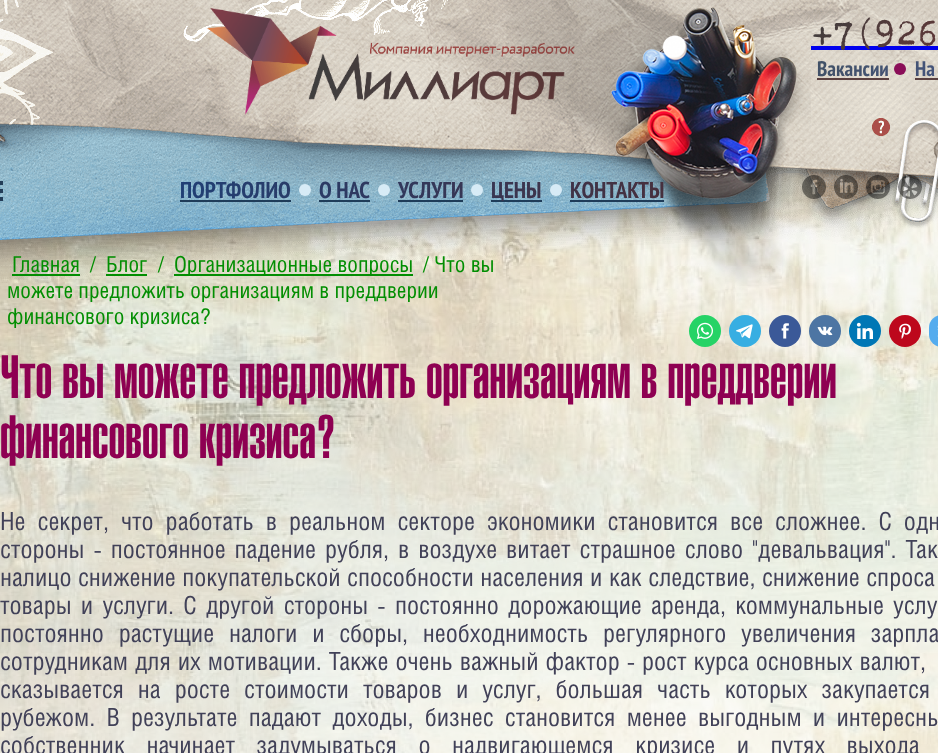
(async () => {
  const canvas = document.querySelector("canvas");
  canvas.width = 938;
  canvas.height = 753;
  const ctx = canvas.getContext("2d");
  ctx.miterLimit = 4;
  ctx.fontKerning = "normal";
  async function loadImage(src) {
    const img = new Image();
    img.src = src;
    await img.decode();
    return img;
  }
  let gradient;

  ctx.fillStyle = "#ffffff";
  ctx.fillRect(0, 0, 938, 753);
  ctx.drawImage(await loadImage("img/1.png"), 0, 124, 938, 629);
  ctx.drawImage(await loadImage("img/2.png"), 0, 0, 938, 283);
  ctx.drawImage(await loadImage("img/3.png"), 207, 8, 368, 107);
  ctx.drawImage(await loadImage("img/4.png"), 506, 0, 305, 286);
  ctx.fillStyle = "#0000ee";
  ctx.fillRect(811, 46, 127, 4);
  ctx.fillStyle = "#5a4040";
  ctx.fillRect(817, 78, 72, 2);
  ctx.fillStyle = "#8a0d57";
  ctx.beginPath();
  ctx.arc(900, 69, 6, 0, Math.PI * 2);
  ctx.fill();
  ctx.fillStyle = "#5a4040";
  ctx.fillRect(915, 78, 23, 2);
  ctx.fillStyle = "#1f3c59";
  ctx.fillRect(180, 200, 111, 2);
  ctx.fillStyle = "#d7ebf6";
  ctx.beginPath();
  ctx.arc(305, 190, 6, 0, Math.PI * 2);
  ctx.fill();
  ctx.fillStyle = "#1f3c59";
  ctx.fillRect(319, 200, 51, 2);
  ctx.fillStyle = "#d7ebf6";
  ctx.beginPath();
  ctx.arc(384, 190, 6, 0, Math.PI * 2);
  ctx.fill();
  ctx.fillStyle = "#1f3c59";
  ctx.fillRect(398, 200, 65, 2);
  ctx.fillStyle = "#d7ebf6";
  ctx.beginPath();
  ctx.arc(477, 190, 6, 0, Math.PI * 2);
  ctx.fill();
  ctx.fillStyle = "#1f3c59";
  ctx.fillRect(491, 200, 51, 2);
  ctx.fillStyle = "#d7ebf6";
  ctx.beginPath();
  ctx.arc(556, 190, 6, 0, Math.PI * 2);
  ctx.fill();
  ctx.fillStyle = "#1f3c59";
  ctx.fillRect(570, 200, 94, 2);
  ctx.drawImage(await loadImage("img/5.png"), 802, 175, 24, 24);
  ctx.drawImage(await loadImage("img/6.png"), 834, 175, 24, 24);
  ctx.drawImage(await loadImage("img/7.png"), 866, 175, 24, 24);
  ctx.drawImage(await loadImage("img/8.png"), 898, 175, 24, 24);
  for (const [x, y, w, h, color] of [
    [12, 274, 68, 2, "#028e02"],
    [106, 274, 41, 2, "#028e02"],
    [174, 274, 239, 2, "#028e02"],
  ]) {
    ctx.fillStyle = color;
    ctx.fillRect(x, y, w, h);
  }
  ctx.fillStyle = "#25d366";
  ctx.beginPath();
  ctx.arc(705, 331, 16, 0, Math.PI * 2);
  ctx.fill();
  ctx.drawImage(await loadImage("img/9.png"), 697, 322, 16, 17);
  ctx.fillStyle = "#37aee2";
  ctx.beginPath();
  ctx.arc(745, 331, 16, 0, Math.PI * 2);
  ctx.fill();
  ctx.drawImage(await loadImage("img/10.png"), 736, 324, 17, 15);
  ctx.fillStyle = "#3b5998";
  ctx.beginPath();
  ctx.arc(785, 331, 16, 0, Math.PI * 2);
  ctx.fill();
  ctx.drawImage(await loadImage("img/11.png"), 781, 323, 8, 16);
  ctx.fillStyle = "#4d75a3";
  ctx.beginPath();
  ctx.arc(825, 331, 16, 0, Math.PI * 2);
  ctx.fill();
  ctx.drawImage(await loadImage("img/12.png"), 817, 326, 16, 10);
  ctx.fillStyle = "#0077b5";
  ctx.beginPath();
  ctx.arc(865, 331, 16, 0, Math.PI * 2);
  ctx.fill();
  ctx.drawImage(await loadImage("img/13.png"), 856, 322, 17, 17);
  ctx.fillStyle = "#bd081c";
  ctx.beginPath();
  ctx.arc(905, 331, 16, 0, Math.PI * 2);
  ctx.fill();
  ctx.drawImage(await loadImage("img/14.png"), 899, 323, 12, 16);
  ctx.fillStyle = "#55acee";
  ctx.beginPath();
  ctx.roundRect(929, 315, 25, 32, 16);
  ctx.fill();
  ctx.drawImage(await loadImage("img/15.png"), 937, 325, 1, 12);
  ctx.letterSpacing = "-1px";
  ctx.font = "900 40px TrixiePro";
  gradient = ctx.createLinearGradient(871, -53, 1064, 121);
  gradient.addColorStop(0, "#3f3e3e");
  gradient.addColorStop(1, "#872f2f");
  ctx.fillStyle = gradient;
  ctx.fillText("+7(926", 811, 44);
  ctx.letterSpacing = "0px";
  ctx.font = "bold 21px PT Sans Narrow";
  gradient = ctx.createLinearGradient(881, -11, 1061, 150);
  gradient.addColorStop(0, "#415166");
  gradient.addColorStop(1, "#495897");
  ctx.fillStyle = gradient;
  ctx.fillText("Вакансии", 817, 76);
  ctx.fillText("На", 915, 76);
  ctx.font = "bold 23px PT Sans Narrow";
  gradient = ctx.createLinearGradient(180, 203, 668, 178);
  gradient.addColorStop(0, "#203f75");
  gradient.addColorStop(1, "#47303d");
  ctx.fillStyle = gradient;
  for (const [text, x, y] of [
    ["ПОРТФОЛИО", 180, 198],
    ["О НАС", 319, 198],
    ["УСЛУГИ", 398, 198],
    ["ЦЕНЫ", 491, 198],
    ["КОНТАКТЫ", 570, 198],
  ]) {
    ctx.fillText(text, x, y);
  }
  ctx.font = "22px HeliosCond";
  ctx.fillStyle = "#028e02";
  for (const [text, x, y] of [
    ["Главная", 12, 272],
    ["/", 90, 272],
    ["Блог", 106, 272],
    ["/", 158, 272],
    ["Организационные вопросы", 174, 272],
    ["/ Что вы", 423, 272],
    ["можете предложить организациям в преддверии", 7, 298],
    ["финансового кризиса?", 7, 324],
  ]) {
    ctx.fillText(text, x, y);
  }
  ctx.font = "800 60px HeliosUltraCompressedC";
  ctx.fillStyle = "#8e0052";
  ctx.fillText("Что вы можете предложить организациям в преддверии", 0, 398);
  ctx.fillText("финансового кризиса?", 0, 458);
  ctx.wordSpacing = "6px";
  ctx.font = "25px HeliosCond";
  ctx.fillStyle = "#414158";
  ctx.fillText("Не секрет, что работать в реальном секторе экономики становится все сложнее. С одн", 0, 530);
  ctx.wordSpacing = "3px";
  ctx.fillText("стороны - постоянное падение рубля, в воздухе витает страшное слово \"девальвация\". Так", 0, 558);
  ctx.wordSpacing = "0.5px";
  ctx.fillText("налицо снижение покупательской способности населения и как следствие, снижение спроса", 0, 586);
  ctx.wordSpacing = "3.25px";
  ctx.fillText("товары и услуги. С другой стороны - постоянно дорожающие аренда, коммунальные услу", 0, 614);
  ctx.wordSpacing = "8.75px";
  ctx.fillText("постоянно растущие налоги и сборы, необходнимость регулярного увеличения зарпла", 0, 642);
  ctx.wordSpacing = "1px";
  ctx.fillText("сотрудникам для их мотивации. Также очень важный фактор - рост курса основных валют,", 0, 670);
  ctx.wordSpacing = "8px";
  ctx.fillText("сказывается на росте стоимости товаров и услуг, большая часть которых закупается", 0, 698);
  ctx.wordSpacing = "5.25px";
  ctx.fillText("рубежом. В результате падают доходы, бизнес становится менее выгодным и интересны", 0, 726);
  ctx.wordSpacing = "15.5px";
  ctx.fillText("собственник начинает задумываться о надвигающемся кризисе и путях выхода", 0, 754);
})();
